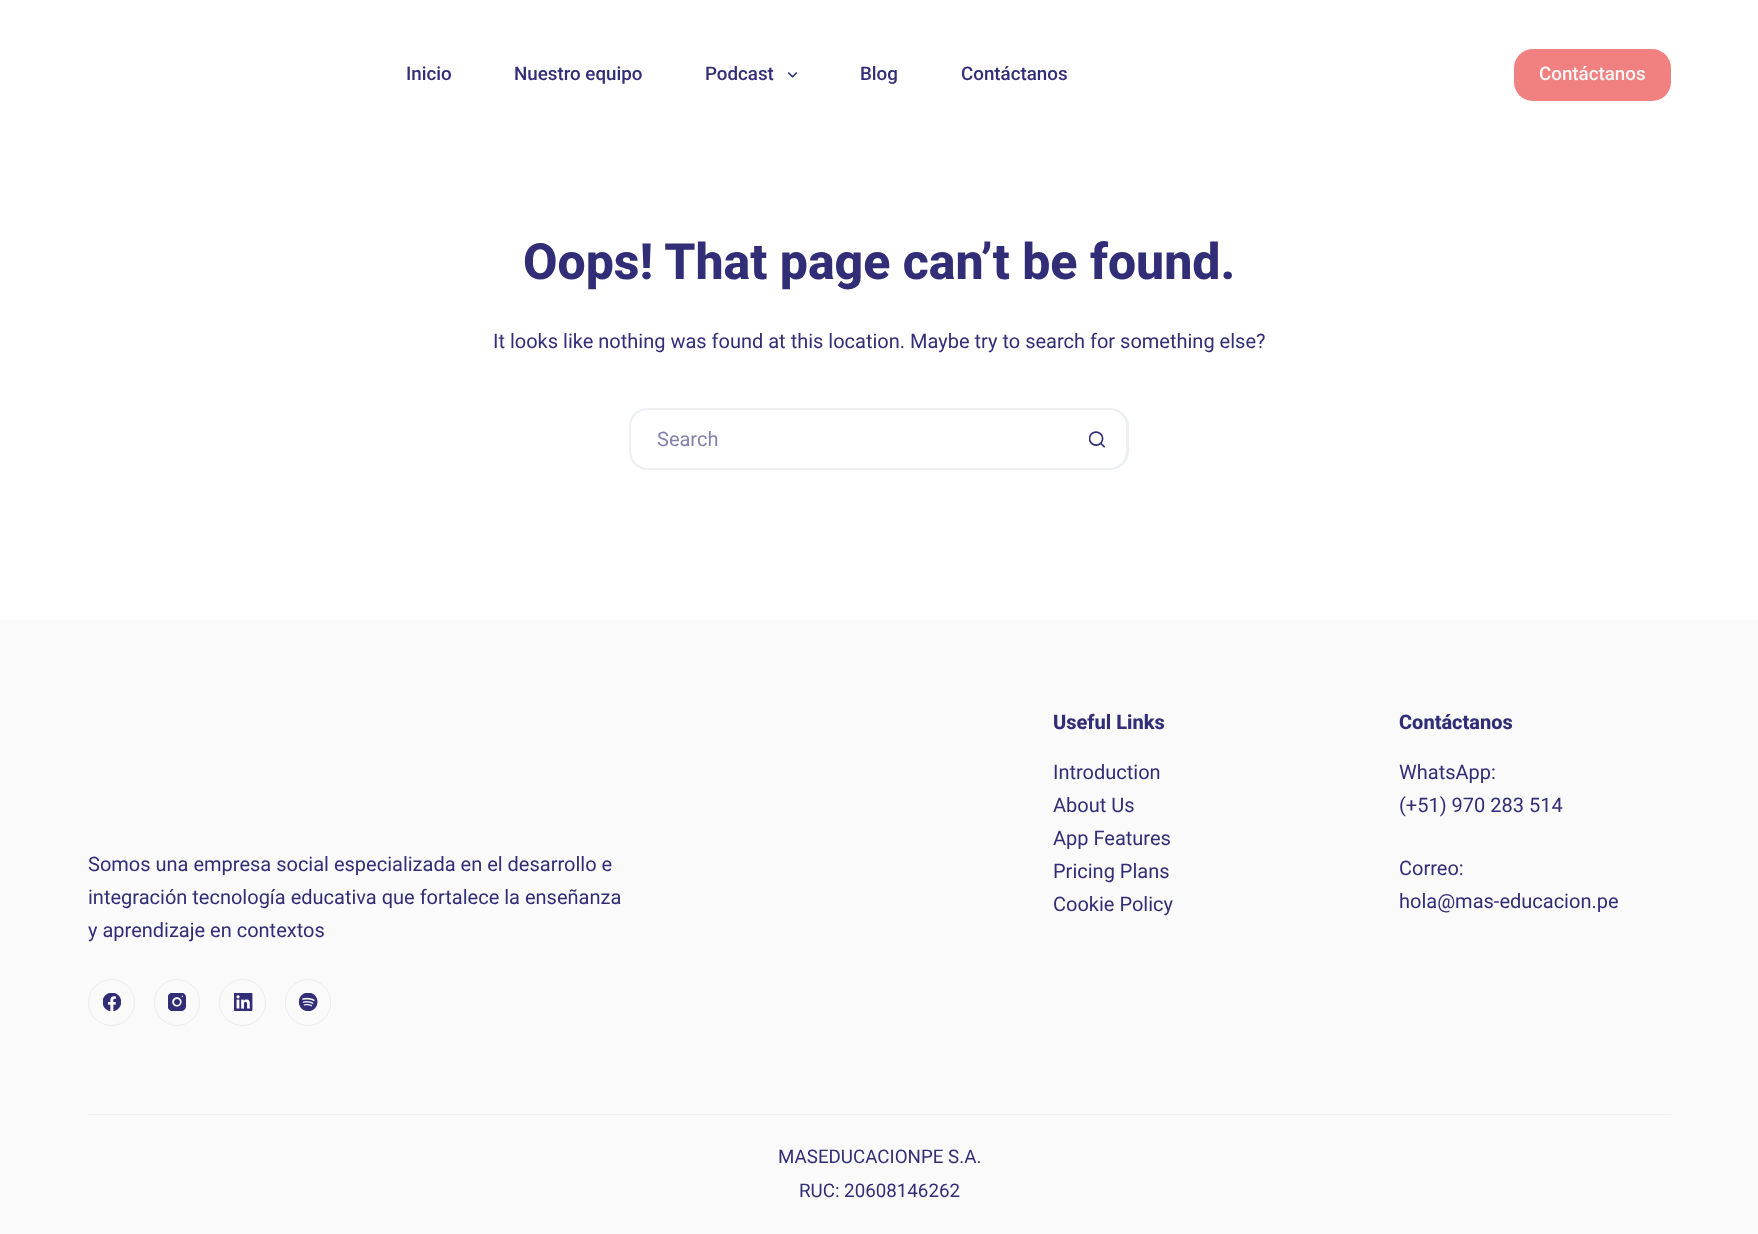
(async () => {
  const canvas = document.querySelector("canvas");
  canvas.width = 1758;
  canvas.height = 1234;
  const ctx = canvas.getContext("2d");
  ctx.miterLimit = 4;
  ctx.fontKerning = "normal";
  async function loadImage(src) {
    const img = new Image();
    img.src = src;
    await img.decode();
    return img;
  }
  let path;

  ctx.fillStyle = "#ffffff";
  ctx.fillRect(0, 0, 1758, 1234);
  ctx.drawImage(await loadImage("img/1.png"), 788, 72, 10, 6);
  ctx.fillStyle = "#f18080";
  ctx.beginPath();
  ctx.roundRect(1514, 49, 157, 52, 19);
  ctx.fill();
  ctx.fillStyle = "#edeff2";
  path = new Path2D("M648 408H1066V470H648C637 470 629 462 629 451V426C629 416 637 408 648 408ZM648 410H1066V468H648C639 468 631 460 631 451V426C631 417 639 410 648 410Z");
  ctx.fill(path, "evenodd");
  path = new Path2D("M1066 408H1110C1120 408 1129 416 1129 426V451C1129 462 1120 470 1110 470H1066ZM1066 410H1110C1119 410 1126 417 1126 426V451C1126 460 1119 468 1110 468H1066Z");
  ctx.fill(path, "evenodd");
  ctx.drawImage(await loadImage("img/2.png"), 1089, 431, 16, 17);
  ctx.fillStyle = "#fafafa";
  ctx.fillRect(0, 620, 1758, 614);
  ctx.beginPath();
  ctx.arc(111.5, 1002.5, 23, 0, Math.PI * 2);
  ctx.strokeStyle = "#eaecef";
  ctx.stroke();
  ctx.drawImage(await loadImage("img/3.png"), 103, 993, 18, 18);
  ctx.beginPath();
  ctx.roundRect(154.5, 979.5, 45, 46, 22.5);
  ctx.stroke();
  ctx.drawImage(await loadImage("img/4.png"), 168, 993, 18, 18);
  ctx.beginPath();
  ctx.arc(242.5, 1002.5, 23, 0, Math.PI * 2);
  ctx.stroke();
  ctx.drawImage(await loadImage("img/5.png"), 234, 993, 19, 18);
  ctx.beginPath();
  ctx.roundRect(285.5, 979.5, 45, 46, 22.5);
  ctx.stroke();
  ctx.drawImage(await loadImage("img/6.png"), 299, 993, 19, 18);
  ctx.fillStyle = "#f0f0f0";
  ctx.fillRect(88, 1114, 1583, 1);
  ctx.font = "500 18.75px Roboto";
  ctx.fillStyle = "#312d76";
  for (const [text, x, y] of [
    ["Inicio", 406, 80],
    ["Nuestro equipo", 514, 80],
    ["Podcast", 705, 80],
    ["Blog", 860, 80],
    ["Contáctanos", 961, 80],
  ]) {
    ctx.fillText(text, x, y);
  }
  ctx.fillStyle = "#f5f5f5";
  ctx.fillText("Contáctanos", 1539, 80);
  ctx.font = "800 50px Roboto";
  ctx.fillStyle = "#312d76";
  ctx.fillText("Oops! That page can’t be found.", 523, 279);
  ctx.font = "20px Roboto";
  ctx.fillText("It looks like nothing was found at this location. Maybe try to search for something else?", 493, 348);
  ctx.fillStyle = "#8381ad";
  ctx.fillText("Search", 657, 446);
  ctx.fillStyle = "#312d76";
  for (const [text, x, y] of [
    ["Somos una empresa social especializada en el desarrollo e", 88, 871],
    ["integración tecnología educativa que fortalece la enseñanza", 88, 904],
    ["y aprendizaje en contextos", 88, 937],
  ]) {
    ctx.fillText(text, x, y);
  }
  ctx.font = "800 20px Roboto";
  ctx.fillText("Useful Links", 1053, 729);
  ctx.font = "20px Roboto";
  for (const [text, x, y] of [
    ["Introduction", 1053, 779],
    ["About Us", 1053, 812],
    ["App Features", 1053, 845],
    ["Pricing Plans", 1053, 878],
    ["Cookie Policy", 1053, 911],
  ]) {
    ctx.fillText(text, x, y);
  }
  ctx.font = "800 20px Roboto";
  ctx.fillText("Contáctanos", 1399, 729);
  ctx.font = "20px Roboto";
  for (const [text, x, y] of [
    ["WhatsApp:", 1399, 779],
    ["(+51) 970 283 514", 1399, 812],
    ["Correo:", 1399, 875],
    ["hola@mas-educacion.pe", 1399, 908],
  ]) {
    ctx.fillText(text, x, y);
  }
  ctx.font = "18.75px Roboto";
  ctx.fillText("MASEDUCACIONPE S.A.", 778, 1163);
  ctx.fillText("RUC: 20608146262", 799, 1197);
})();
